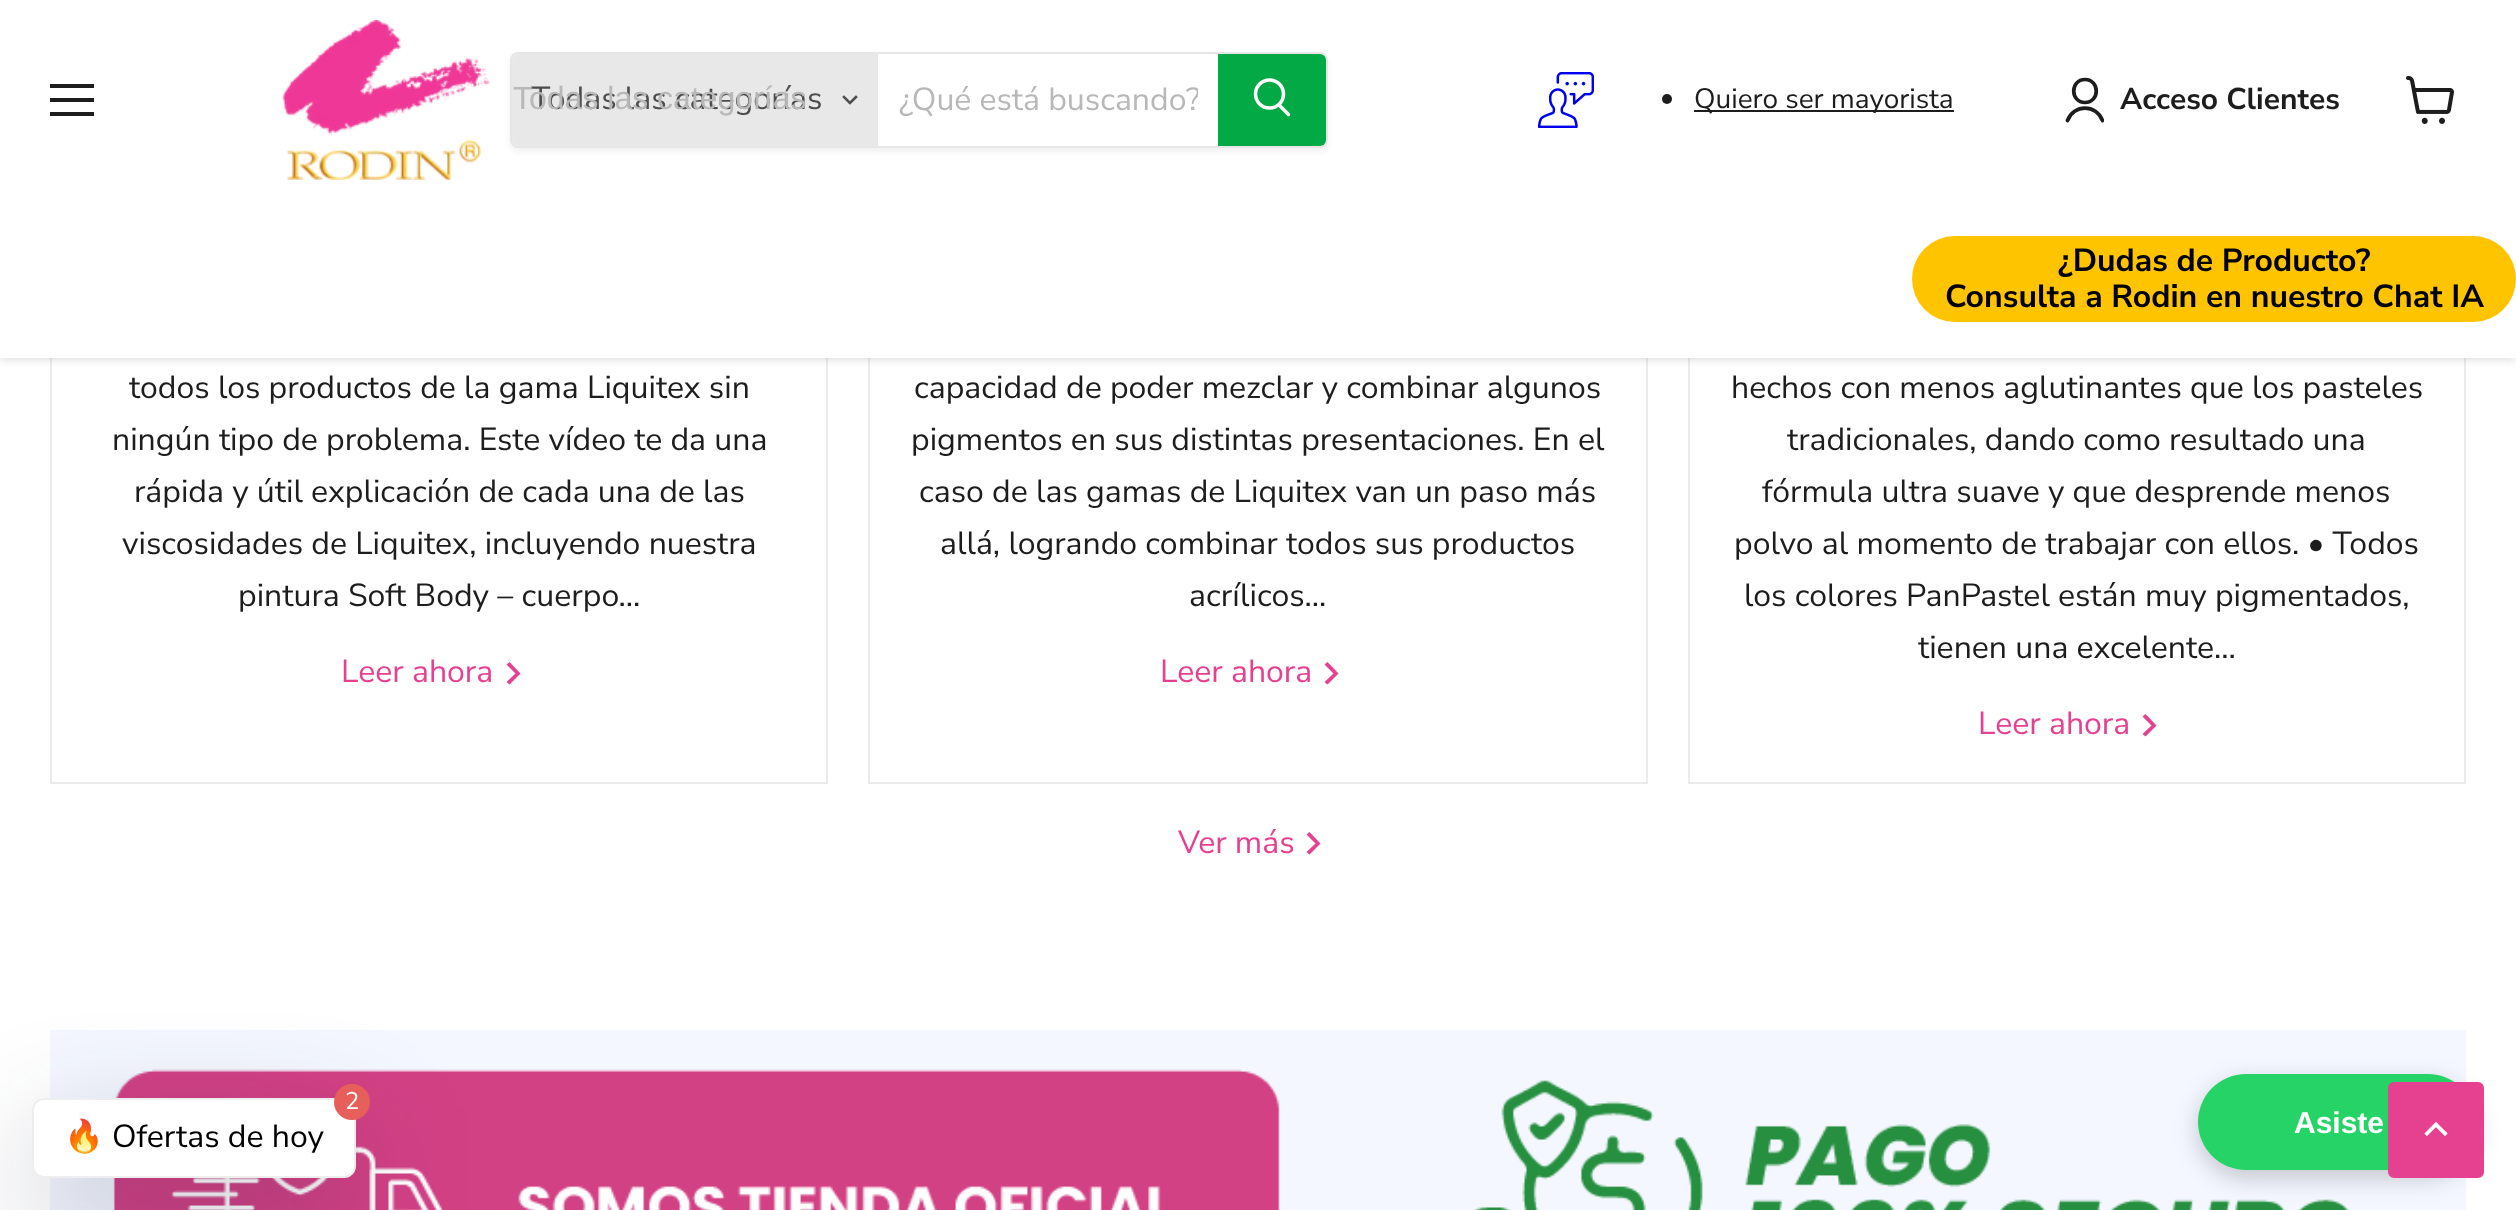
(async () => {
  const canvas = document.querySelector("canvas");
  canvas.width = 2516;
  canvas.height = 1210;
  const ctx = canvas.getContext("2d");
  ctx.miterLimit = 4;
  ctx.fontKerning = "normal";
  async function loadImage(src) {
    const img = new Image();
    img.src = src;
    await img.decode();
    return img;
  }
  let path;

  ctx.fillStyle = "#ffffff";
  ctx.fillRect(0, 0, 2516, 1210);
  ctx.strokeStyle = "#ebebeb";
  ctx.lineWidth = 2;
  ctx.strokeRect(51, -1, 776, 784);
  ctx.strokeRect(869, -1, 778, 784);
  ctx.strokeRect(1689, -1, 776, 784);
  ctx.fillStyle = "rgba(128, 128, 128, 0.25)";
  ctx.filter = "blur(4px)";
  ctx.beginPath();
  ctx.rect(0, 2, 2516, 358);
  ctx.fill();
  ctx.filter = "none";
  for (const [x, y, w, h, color] of [
    [0, 0, 2516, 358, "#ffffff"],
    [50, 84, 44, 4, "#1d1d1d"],
    [50, 98, 44, 4, "#1d1d1d"],
    [50, 112, 44, 4, "#1d1d1d"],
  ]) {
    ctx.fillStyle = color;
    ctx.fillRect(x, y, w, h);
  }
  ctx.drawImage(await loadImage("img/1.png"), 282, 20, 208, 160);
  ctx.save();
  path = new Path2D("M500 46H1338V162H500ZM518 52H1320C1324.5 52 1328 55.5 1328 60V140C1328 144.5 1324.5 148 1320 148H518C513.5 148 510 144.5 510 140V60C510 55.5 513.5 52 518 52Z");
  ctx.clip(path, "evenodd");
  ctx.fillStyle = "rgba(128, 128, 128, 0.11)";
  ctx.filter = "blur(3px)";
  ctx.beginPath();
  ctx.roundRect(510, 56, 818, 96, 8);
  ctx.fill();
  ctx.filter = "none";
  ctx.restore();
  ctx.beginPath();
  ctx.roundRect(511, 53, 816, 94, 7);
  ctx.strokeStyle = "rgba(128, 128, 128, 0.2)";
  ctx.stroke();
  ctx.fillStyle = "#e8e8e8";
  ctx.beginPath();
  ctx.roundRect(512, 54, 366, 92, [6, 0, 0, 6]);
  ctx.fill();
  path = new Path2D("M850 103L856 97M850 103L844 97");
  ctx.strokeStyle = "#4d4d4d";
  ctx.lineWidth = 2.5;
  ctx.lineCap = "square";
  ctx.stroke(path);
  ctx.fillStyle = "#02a945";
  ctx.beginPath();
  ctx.roundRect(1218, 54, 108, 92, [0, 6, 6, 0]);
  ctx.fill();
  path = new Path2D("M1288.5 114.5L1279 105");
  ctx.strokeStyle = "#ffffff";
  ctx.lineWidth = 3.5;
  ctx.lineCap = "round";
  ctx.stroke(path);
  ctx.beginPath();
  ctx.arc(1269.5, 94, 14, 0, Math.PI * 2);
  ctx.stroke();
  ctx.drawImage(await loadImage("img/2.png"), 1538, 72, 56, 56);
  ctx.fillStyle = "#1d1d1d";
  ctx.beginPath();
  ctx.arc(1667, 99, 5, 0, Math.PI * 2);
  ctx.fill();
  ctx.fillRect(1694, 110, 260, 2);
  path = new Path2D("M2085 102.5C2100 102.5 2100 79.5 2085 79.5C2070 79.5 2070 102.5 2085 102.5Z");
  ctx.strokeStyle = "#1d1d1d";
  ctx.lineWidth = 3.7;
  ctx.lineJoin = "round";
  ctx.stroke(path);
  ctx.save();
  ctx.beginPath();
  ctx.rect(2064, 76, 40, 48);
  ctx.clip();
  path = new Path2D("M2102.5 120.5C2096.5 104 2073.5 104 2067.5 120.5");
  ctx.stroke(path);
  ctx.restore();
  ctx.drawImage(await loadImage("img/3.png"), 2406, 76, 48, 48);
  ctx.fillStyle = "#ffc400";
  ctx.beginPath();
  ctx.roundRect(1912, 236, 604, 86, 43);
  ctx.fill();
  ctx.fillStyle = "#e64190";
  path = new Path2D("M515.5 673.5L506.5 664.5L509.5 662L520.5 673.5L509.5 684.5L506.5 682Z");
  ctx.fill(path, "evenodd");
  path = new Path2D("M1333.5 673.5L1324.5 664.5L1327.5 662L1338.5 673.5L1327.5 684.5L1324.5 682Z");
  ctx.fill(path, "evenodd");
  path = new Path2D("M2151.5 725.5L2142.5 716.5L2145.5 714L2156.5 725.5L2145.5 736.5L2142.5 734Z");
  ctx.fill(path, "evenodd");
  path = new Path2D("M1315.5 843.5L1306.5 834.5L1309.5 832L1320.5 843.5L1309.5 854.5L1306.5 852Z");
  ctx.fill(path, "evenodd");
  ctx.drawImage(await loadImage("img/4.png"), 50, 1030, 2416, 180);
  ctx.fillStyle = "rgba(27, 33, 58, 0.3)";
  ctx.filter = "blur(60px)";
  ctx.beginPath();
  ctx.roundRect(36, 1142, 316, 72, 8);
  ctx.fill();
  ctx.filter = "none";
  ctx.fillStyle = "#ffffff";
  ctx.beginPath();
  ctx.roundRect(33, 1099, 322, 78, 11);
  ctx.fill();
  ctx.strokeStyle = "#eeeeee";
  ctx.lineWidth = 2;
  ctx.lineJoin = "miter";
  ctx.stroke();
  ctx.fillStyle = "#e65f5a";
  ctx.beginPath();
  ctx.arc(352, 1102, 18, 0, Math.PI * 2);
  ctx.fill();
  ctx.fillStyle = "rgba(0, 0, 0, 0.2)";
  ctx.filter = "blur(12px)";
  ctx.beginPath();
  ctx.roundRect(2198, 1082, 278, 96, 48);
  ctx.fill();
  ctx.filter = "none";
  ctx.fillStyle = "#25d366";
  ctx.beginPath();
  ctx.roundRect(2198, 1074, 278, 96, 48);
  ctx.fill();
  ctx.fillStyle = "#e64190";
  ctx.beginPath();
  ctx.roundRect(2389, 1083, 94, 94, 5);
  ctx.fill();
  ctx.strokeStyle = "#e64190";
  ctx.stroke();
  path = new Path2D("M2436 1124.5L2427 1133.5M2436 1124.5L2445 1133.5");
  ctx.strokeStyle = "#ffffff";
  ctx.lineWidth = 3.8;
  ctx.lineCap = "square";
  ctx.stroke(path);
  ctx.font = "32px Nunito Sans";
  ctx.fillStyle = "#4d4d4d";
  ctx.fillText("Todas las categorías", 531, 109);
  ctx.font = "32px Liberation Sans";
  ctx.fillStyle = "#b8b8b8";
  ctx.fillText("Todas las categorías", 513, 109);
  ctx.save();
  ctx.beginPath();
  ctx.rect(898, 78, 300, 44);
  ctx.clip();
  ctx.font = "32px Nunito Sans";
  ctx.fillText("¿Qué está buscando?", 899, 110);
  ctx.restore();
  ctx.font = "28px Nunito Sans";
  ctx.fillStyle = "#1d1d1d";
  ctx.fillText("Quiero ser mayorista", 1694, 108);
  ctx.font = "bold 30px Nunito Sans";
  ctx.fillText("Acceso Clientes", 2120, 109);
  ctx.font = "bold 32px Nunito Sans";
  ctx.fillStyle = "#000000";
  ctx.fillText("¿Dudas de Producto?", 2058, 271);
  ctx.fillText("Consulta a Rodin en nuestro Chat IA", 1945, 307);
  ctx.font = "32px Nunito Sans";
  ctx.fillStyle = "#1d1d1d";
  for (const [text, x, y] of [
    ["todos los productos de la gama Liquitex sin", 129, 398],
    ["ningún tipo de problema. Este vídeo te da una", 112, 450],
    ["rápida y útil explicación de cada una de las", 134, 502],
    ["viscosidades de Liquitex, incluyendo nuestra", 122, 554],
    ["pintura Soft Body – cuerpo...", 238, 606],
  ]) {
    ctx.fillText(text, x, y);
  }
  ctx.fillStyle = "#e64190";
  ctx.fillText("Leer ahora", 341, 682);
  ctx.fillStyle = "#1d1d1d";
  for (const [text, x, y] of [
    ["capacidad de poder mezclar y combinar algunos", 914, 398],
    ["pigmentos en sus distintas presentaciones. En el", 911, 450],
    ["caso de las gamas de Liquitex van un paso más", 919, 502],
    ["allá, logrando combinar todos sus productos", 940, 554],
    ["acrílicos...", 1189, 606],
  ]) {
    ctx.fillText(text, x, y);
  }
  ctx.fillStyle = "#e64190";
  ctx.fillText("Leer ahora", 1160, 682);
  ctx.fillStyle = "#1d1d1d";
  for (const [text, x, y] of [
    ["hechos con menos aglutinantes que los pasteles", 1731, 398],
    ["tradicionales, dando como resultado una", 1787, 450],
    ["fórmula ultra suave y que desprende menos", 1762, 502],
    ["polvo al momento de trabajar con ellos. • Todos", 1734, 554],
    ["los colores PanPastel están muy pigmentados,", 1744, 606],
    ["tienen una excelente...", 1918, 658],
  ]) {
    ctx.fillText(text, x, y);
  }
  ctx.fillStyle = "#e64190";
  ctx.fillText("Leer ahora", 1978, 734);
  ctx.fillText("Ver más", 1178, 853);
  ctx.font = "24px Nunito Sans";
  ctx.fillStyle = "#ffffff";
  ctx.fillText("2", 345, 1109);
  ctx.font = "32px Noto Color Emoji";
  ctx.fillStyle = "#000000";
  ctx.fillText("🔥", 64, 1147);
  ctx.font = "32px Nunito Sans";
  ctx.fillText("Ofertas de hoy", 112, 1147);
  ctx.font = "bold 30px Liberation Sans";
  ctx.fillStyle = "#ffffff";
  ctx.fillText("Asiste", 2294, 1133);
})();
